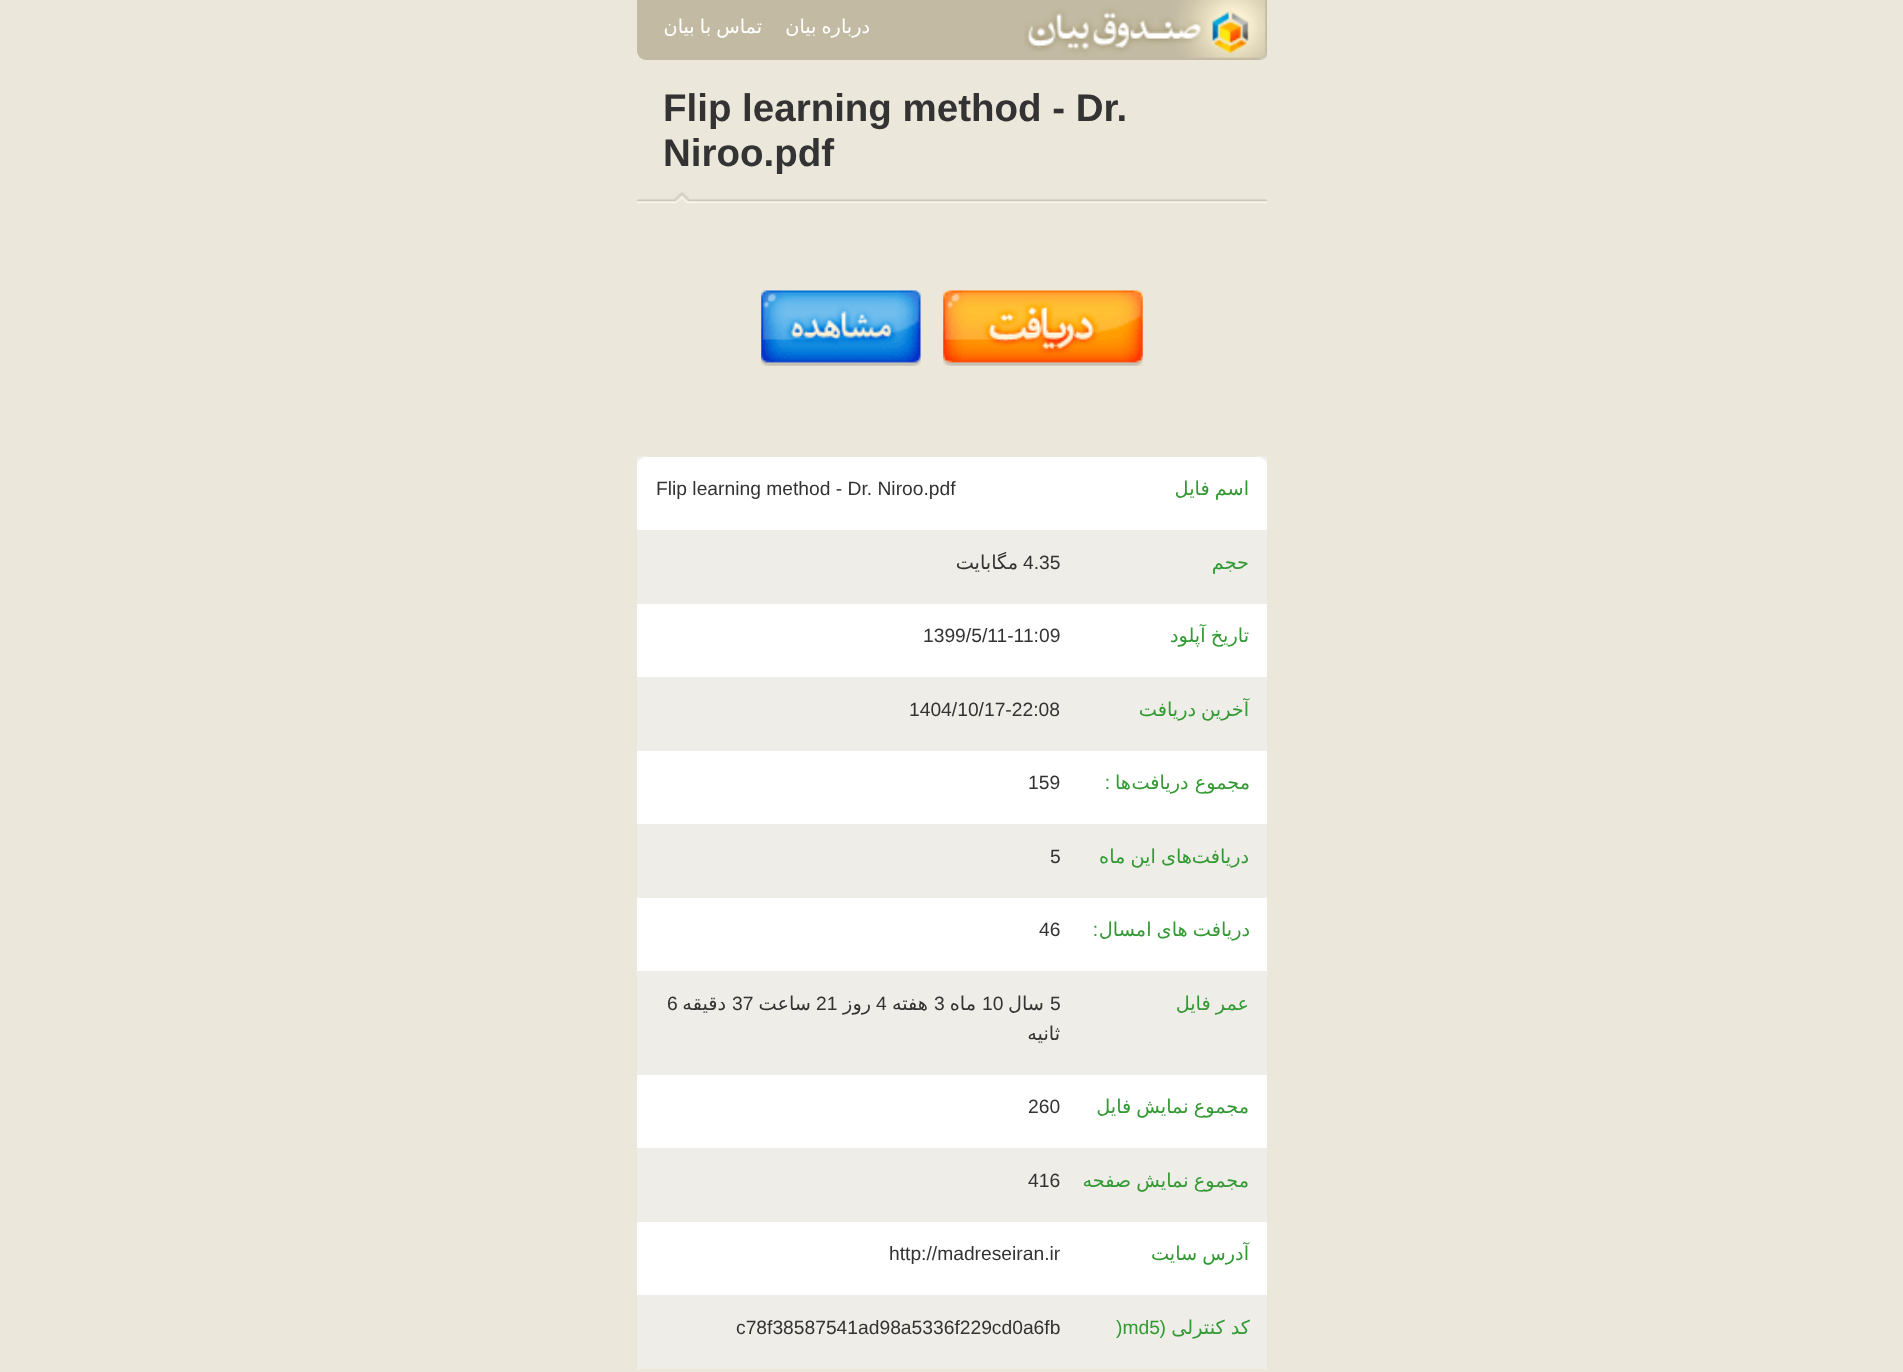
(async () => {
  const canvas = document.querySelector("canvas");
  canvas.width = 1903;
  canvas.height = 1372;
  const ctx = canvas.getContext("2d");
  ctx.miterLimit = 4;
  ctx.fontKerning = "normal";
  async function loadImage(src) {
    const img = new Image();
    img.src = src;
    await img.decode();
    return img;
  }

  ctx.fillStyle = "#ebe7da";
  ctx.fillRect(0, 0, 1903, 1372);
  ctx.fillStyle = "#c2baa2";
  ctx.beginPath();
  ctx.roundRect(637, 0, 630, 60, [0, 0, 9, 9]);
  ctx.fill();
  ctx.drawImage(await loadImage("img/1.png"), 1024, 0, 243, 60);
  ctx.drawImage(await loadImage("img/2.png"), 637, 192, 630, 11);
  ctx.drawImage(await loadImage("img/3.png"), 943, 290, 200, 76);
  ctx.drawImage(await loadImage("img/4.png"), 761, 290, 160, 76);
  ctx.fillStyle = "#ffffff";
  ctx.fillRect(637, 457, 630, 838);
  ctx.drawImage(await loadImage("img/5.png"), 1256, 456, 11, 7);
  ctx.drawImage(await loadImage("img/6.png"), 637, 456, 11, 7);
  for (const [x, y, w, h, color] of [
    [637, 530, 630, 74, "#eeede7"],
    [637, 677, 630, 74, "#eeede7"],
    [637, 824, 630, 74, "#eeede7"],
    [637, 971, 630, 104, "#eeede7"],
    [637, 1148, 630, 74, "#eeede7"],
    [637, 1295, 630, 74, "#eeede7"],
  ]) {
    ctx.fillStyle = color;
    ctx.fillRect(x, y, w, h);
  }
  ctx.wordSpacing = "-1px";
  ctx.direction = "rtl";
  ctx.font = "19.25px DejaVu Sans";
  ctx.fillStyle = "#ffffff";
  ctx.fillText("درباره بیان", 870, 33);
  ctx.fillText("تماس با بیان", 762, 33);
  ctx.wordSpacing = "0px";
  ctx.direction = "ltr";
  ctx.font = "bold 38.5px Liberation Sans";
  ctx.fillStyle = "#333333";
  ctx.fillText("Flip learning method - Dr.", 663, 121);
  ctx.fillText("Niroo.pdf", 663, 166);
  ctx.wordSpacing = "-1px";
  ctx.direction = "rtl";
  ctx.font = "19.25px DejaVu Sans";
  ctx.fillStyle = "#339933";
  ctx.fillText("اسم فایل", 1249, 495);
  ctx.wordSpacing = "0px";
  ctx.direction = "ltr";
  ctx.font = "19.25px Liberation Sans";
  ctx.fillStyle = "#333333";
  ctx.fillText("Flip learning method - Dr. Niroo.pdf", 656, 495);
  ctx.direction = "rtl";
  ctx.font = "19.25px DejaVu Sans";
  ctx.fillStyle = "#339933";
  ctx.fillText("حجم", 1249, 569);
  ctx.direction = "ltr";
  ctx.font = "19.25px Liberation Sans";
  ctx.fillStyle = "#333333";
  ctx.fillText("4.35", 1023, 569);
  ctx.direction = "rtl";
  ctx.font = "19.25px DejaVu Sans";
  ctx.fillText("مگابایت", 1018, 569);
  ctx.wordSpacing = "-1px";
  ctx.fillStyle = "#339933";
  ctx.fillText("تاریخ آپلود", 1249, 642);
  ctx.wordSpacing = "0px";
  ctx.direction = "ltr";
  ctx.font = "19.25px Liberation Sans";
  ctx.fillStyle = "#333333";
  ctx.fillText("1399/5/11-11:09", 923, 642);
  ctx.wordSpacing = "-1px";
  ctx.direction = "rtl";
  ctx.font = "19.25px DejaVu Sans";
  ctx.fillStyle = "#339933";
  ctx.fillText("آخرین دریافت", 1249, 716);
  ctx.wordSpacing = "0px";
  ctx.direction = "ltr";
  ctx.font = "19.25px Liberation Sans";
  ctx.fillStyle = "#333333";
  ctx.fillText("1404/10/17-22:08", 909, 716);
  ctx.direction = "rtl";
  ctx.font = "19.25px DejaVu Sans";
  ctx.fillStyle = "#339933";
  ctx.fillText("مجموع دریافت", 1250, 789);
  ctx.fillText("ها", 1131, 789);
  ctx.font = "19.25px Liberation Sans";
  ctx.fillText(":", 1110, 789);
  ctx.direction = "ltr";
  ctx.fillStyle = "#333333";
  ctx.fillText("159", 1028, 789);
  ctx.direction = "rtl";
  ctx.font = "19.25px DejaVu Sans";
  ctx.fillStyle = "#339933";
  ctx.fillText("دریافت", 1249, 863);
  ctx.wordSpacing = "-1px";
  ctx.fillText("های این ماه", 1192, 863);
  ctx.wordSpacing = "0px";
  ctx.direction = "ltr";
  ctx.font = "19.25px Liberation Sans";
  ctx.fillStyle = "#333333";
  ctx.fillText("5", 1050, 863);
  ctx.wordSpacing = "-1px";
  ctx.direction = "rtl";
  ctx.font = "19.25px DejaVu Sans";
  ctx.fillStyle = "#339933";
  ctx.fillText("دریافت های امسال", 1250, 936);
  ctx.wordSpacing = "0px";
  ctx.font = "19.25px Liberation Sans";
  ctx.fillText(":", 1098, 936);
  ctx.direction = "ltr";
  ctx.fillStyle = "#333333";
  ctx.fillText("46", 1039, 936);
  ctx.wordSpacing = "-1px";
  ctx.direction = "rtl";
  ctx.font = "19.25px DejaVu Sans";
  ctx.fillStyle = "#339933";
  ctx.fillText("عمر فایل", 1249, 1010);
  ctx.wordSpacing = "0px";
  ctx.direction = "ltr";
  ctx.font = "19.25px Liberation Sans";
  ctx.fillStyle = "#333333";
  ctx.fillText("5", 1050, 1010);
  ctx.direction = "rtl";
  ctx.font = "19.25px DejaVu Sans";
  ctx.fillText("سال", 1044, 1010);
  ctx.direction = "ltr";
  ctx.font = "19.25px Liberation Sans";
  ctx.fillText("10", 982, 1010);
  ctx.direction = "rtl";
  ctx.font = "19.25px DejaVu Sans";
  ctx.fillText("ماه", 976, 1010);
  ctx.direction = "ltr";
  ctx.font = "19.25px Liberation Sans";
  ctx.fillText("3", 934, 1010);
  ctx.direction = "rtl";
  ctx.font = "19.25px DejaVu Sans";
  ctx.fillText("هفته", 928, 1010);
  ctx.direction = "ltr";
  ctx.font = "19.25px Liberation Sans";
  ctx.fillText("4", 876, 1010);
  ctx.direction = "rtl";
  ctx.font = "19.25px DejaVu Sans";
  ctx.fillText("روز", 871, 1010);
  ctx.direction = "ltr";
  ctx.font = "19.25px Liberation Sans";
  ctx.fillText("21", 816, 1010);
  ctx.direction = "rtl";
  ctx.font = "19.25px DejaVu Sans";
  ctx.fillText("ساعت", 811, 1010);
  ctx.direction = "ltr";
  ctx.font = "19.25px Liberation Sans";
  ctx.fillText("37", 732, 1010);
  ctx.direction = "rtl";
  ctx.font = "19.25px DejaVu Sans";
  ctx.fillText("دقیقه", 726, 1010);
  ctx.direction = "ltr";
  ctx.font = "19.25px Liberation Sans";
  ctx.fillText("6", 667, 1010);
  ctx.direction = "rtl";
  ctx.font = "19.25px DejaVu Sans";
  ctx.fillText("ثانیه", 1060, 1040);
  ctx.wordSpacing = "-1px";
  ctx.fillStyle = "#339933";
  ctx.fillText("مجموع نمایش فایل", 1249, 1113);
  ctx.wordSpacing = "0px";
  ctx.direction = "ltr";
  ctx.font = "19.25px Liberation Sans";
  ctx.fillStyle = "#333333";
  ctx.fillText("260", 1028, 1113);
  ctx.wordSpacing = "-1px";
  ctx.direction = "rtl";
  ctx.font = "19.25px DejaVu Sans";
  ctx.fillStyle = "#339933";
  ctx.fillText("مجموع نمایش صفحه", 1249, 1187);
  ctx.wordSpacing = "0px";
  ctx.direction = "ltr";
  ctx.font = "19.25px Liberation Sans";
  ctx.fillStyle = "#333333";
  ctx.fillText("416", 1028, 1187);
  ctx.wordSpacing = "-1px";
  ctx.direction = "rtl";
  ctx.font = "19.25px DejaVu Sans";
  ctx.fillStyle = "#339933";
  ctx.fillText("آدرس سایت", 1249, 1260);
  ctx.wordSpacing = "0px";
  ctx.direction = "ltr";
  ctx.font = "19.25px Liberation Sans";
  ctx.fillStyle = "#333333";
  ctx.fillText("http://madreseiran.ir", 889, 1260);
  ctx.direction = "rtl";
  ctx.font = "19.25px DejaVu Sans";
  ctx.fillStyle = "#339933";
  ctx.fillText("کد کنترلی", 1250, 1334);
  ctx.font = "19.25px Liberation Sans";
  ctx.fillText("(", 1166, 1334);
  ctx.direction = "ltr";
  ctx.fillText(")md5", 1116, 1334);
  ctx.fillStyle = "#333333";
  ctx.fillText("c78f38587541ad98a5336f229cd0a6fb", 736, 1334);
})();
